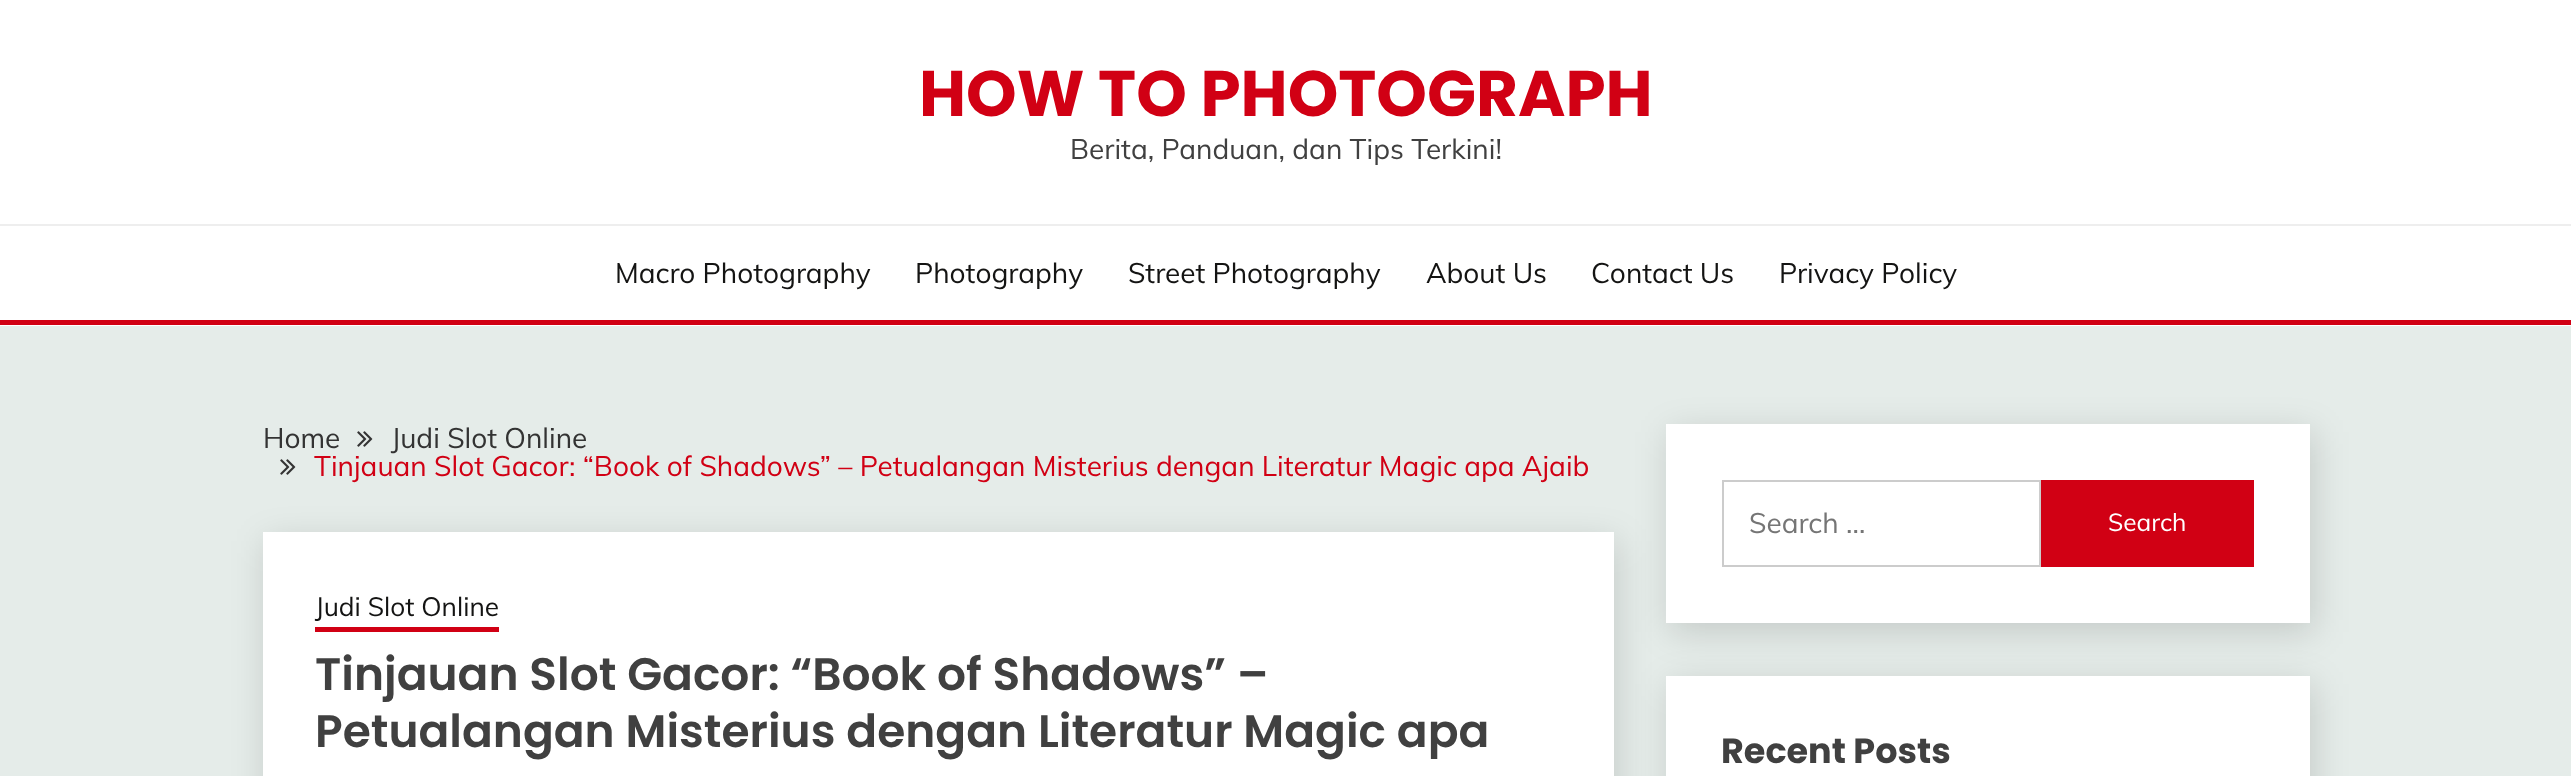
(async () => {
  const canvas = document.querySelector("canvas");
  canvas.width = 2571;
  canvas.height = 776;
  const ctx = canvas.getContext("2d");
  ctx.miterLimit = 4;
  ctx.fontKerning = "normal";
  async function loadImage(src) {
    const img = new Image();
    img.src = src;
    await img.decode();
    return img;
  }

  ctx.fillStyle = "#e5ece9";
  ctx.fillRect(0, 0, 2571, 776);
  for (const [x, y, w, h, color] of [
    [0, 0, 2571, 326, "#ffffff"],
    [0, 224, 2571, 2, "#eeeeee"],
    [0, 320, 2571, 5, "#d10014"],
  ]) {
    ctx.fillStyle = color;
    ctx.fillRect(x, y, w, h);
  }
  ctx.drawImage(await loadImage("img/1.png"), 357, 431, 16, 16);
  ctx.drawImage(await loadImage("img/1.png"), 280, 459, 16, 16);
  ctx.fillStyle = "rgba(0, 0, 0, 0.14)";
  ctx.filter = "blur(17.5px)";
  ctx.beginPath();
  ctx.rect(266, 541, 1351, 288);
  ctx.fill();
  ctx.filter = "none";
  ctx.fillStyle = "#ffffff";
  ctx.fillRect(263, 532, 1351, 244);
  ctx.fillStyle = "#d10014";
  ctx.fillRect(315, 627, 184, 5);
  ctx.fillStyle = "rgba(0, 0, 0, 0.14)";
  ctx.filter = "blur(17.5px)";
  ctx.beginPath();
  ctx.rect(1670, 432, 644, 200);
  ctx.fill();
  ctx.filter = "none";
  ctx.fillStyle = "#ffffff";
  ctx.fillRect(1666, 424, 644, 199);
  ctx.strokeStyle = "#cccccc";
  ctx.lineWidth = 2;
  ctx.strokeRect(1723, 481, 317, 85);
  ctx.fillStyle = "#d10014";
  ctx.fillRect(2041, 480, 213, 87);
  ctx.fillStyle = "rgba(0, 0, 0, 0.14)";
  ctx.filter = "blur(17.5px)";
  ctx.beginPath();
  ctx.rect(1670, 684, 644, 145);
  ctx.fill();
  ctx.filter = "none";
  ctx.fillStyle = "#ffffff";
  ctx.fillRect(1666, 676, 644, 100);
  ctx.font = "bold 64.4px Poppins";
  ctx.fillStyle = "#d10014";
  ctx.fillText("HOW TO PHOTOGRAPH", 919, 116);
  ctx.font = "28px Muli";
  ctx.fillStyle = "#404040";
  ctx.fillText("Berita, Panduan, dan Tips Terkini!", 1070, 159);
  ctx.fillStyle = "#141413";
  for (const [text, x, y] of [
    ["Macro Photography", 615, 283],
    ["Photography", 915, 283],
    ["Street Photography", 1128, 283],
    ["About Us", 1426, 283],
    ["Contact Us", 1591, 283],
    ["Privacy Policy", 1779, 283],
  ]) {
    ctx.fillText(text, x, y);
  }
  ctx.fillStyle = "#333333";
  ctx.fillText("Home", 263, 448);
  ctx.fillText("Judi Slot Online", 391, 448);
  ctx.fillStyle = "#d10014";
  ctx.fillText("Tinjauan Slot Gacor: “Book of Shadows” – Petualangan Misterius dengan Literatur Magic apa Ajaib", 314, 476);
  ctx.font = "26.25px Muli";
  ctx.fillStyle = "#141413";
  ctx.fillText("Judi Slot Online", 315, 616);
  ctx.font = "600 45.5px Poppins";
  ctx.fillStyle = "#404040";
  ctx.fillText("Tinjauan Slot Gacor: “Book of Shadows” –", 315, 690);
  ctx.fillText("Petualangan Misterius dengan Literatur Magic apa", 315, 747);
  ctx.font = "28px Muli";
  ctx.fillStyle = "#757575";
  ctx.fillText("Search …", 1749, 533);
  ctx.font = "24.5px Muli";
  ctx.fillStyle = "#ffffff";
  ctx.fillText("Search", 2108, 531);
  ctx.font = "bold 35px Poppins";
  ctx.fillStyle = "#404040";
  ctx.fillText("Recent Posts", 1721, 763);
})();
